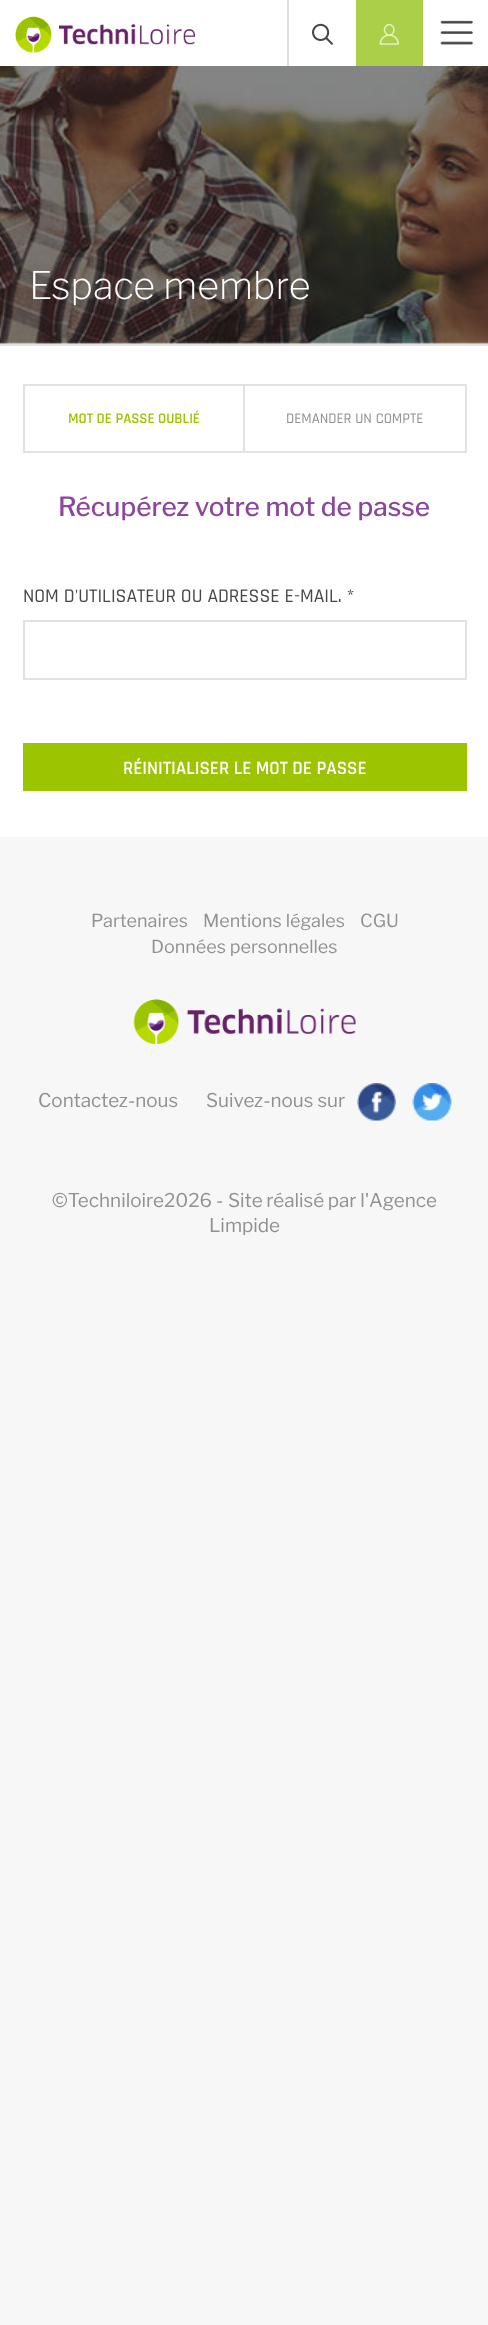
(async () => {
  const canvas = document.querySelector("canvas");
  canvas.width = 488;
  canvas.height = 2325;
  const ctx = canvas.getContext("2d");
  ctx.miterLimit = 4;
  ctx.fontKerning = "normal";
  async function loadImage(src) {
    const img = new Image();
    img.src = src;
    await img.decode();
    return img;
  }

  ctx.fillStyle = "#f7f7f7";
  ctx.fillRect(0, 0, 488, 2325);
  ctx.fillStyle = "#ffffff";
  ctx.fillRect(0, 343, 488, 494);
  ctx.fillRect(0, 0, 488, 66);
  ctx.drawImage(await loadImage("img/1.png"), 15, 16, 180, 37);
  ctx.fillStyle = "#dddcdb";
  ctx.fillRect(287, 0, 2, 66);
  ctx.drawImage(await loadImage("img/2.png"), 312, 23, 21, 22);
  ctx.fillStyle = "#accf49";
  ctx.fillRect(356, 0, 67, 66);
  ctx.drawImage(await loadImage("img/3.png"), 379, 23, 20, 22);
  ctx.drawImage(await loadImage("img/4.png"), 440, 20, 33, 25);
  ctx.drawImage(await loadImage("img/5.png"), 0, 66, 488, 278);
  ctx.fillStyle = "#e2e2e1";
  ctx.fillRect(0, 344, 488, 2);
  ctx.strokeStyle = "#e2e2e1";
  ctx.lineWidth = 2;
  ctx.strokeRect(24, 385, 442, 67);
  ctx.fillRect(243, 386, 2, 66);
  ctx.strokeRect(24, 621, 442, 58);
  ctx.fillStyle = "#9cc400";
  ctx.fillRect(23, 743, 444, 48);
  ctx.drawImage(await loadImage("img/6.png"), 133, 999, 223, 45);
  ctx.drawImage(await loadImage("img/7.png"), 357, 1083, 39, 38);
  ctx.drawImage(await loadImage("img/8.png"), 412, 1083, 40, 38);
  ctx.font = "200 37.75px Libre Franklin";
  ctx.fillStyle = "#ffffff";
  ctx.fillText("Espace membre", 29, 299);
  ctx.font = "600 14.75px Rajdhani";
  ctx.fillStyle = "#9cc400";
  ctx.fillText("MOT DE PASSE OUBLIÉ", 68, 423);
  ctx.font = "500 14.75px Rajdhani";
  ctx.fillStyle = "#919191";
  ctx.fillText("DEMANDER UN COMPTE", 286, 423);
  ctx.font = "500 26.25px Libre Franklin";
  ctx.fillStyle = "#8d469d";
  ctx.fillText("Récupérez votre mot de passe", 58, 516);
  ctx.font = "500 19.5px Rajdhani";
  ctx.fillStyle = "#484748";
  ctx.fillText("NOM D'UTILISATEUR OU ADRESSE E-MAIL. *", 23, 602);
  ctx.font = "600 18.9px Rajdhani";
  ctx.fillStyle = "#ffffff";
  ctx.fillText("RÉINITIALISER LE MOT DE PASSE", 123, 774);
  ctx.font = "18px Libre Franklin";
  ctx.fillStyle = "#919191";
  for (const [text, x, y] of [
    ["Partenaires", 91, 927],
    ["Mentions légales", 203, 927],
    ["CGU", 360, 927],
    ["Données personnelles", 151, 953],
  ]) {
    ctx.fillText(text, x, y);
  }
  ctx.font = "18.9px Libre Franklin";
  for (const [text, x, y] of [
    ["Contactez-nous", 38, 1107],
    ["Suivez-nous sur", 206, 1107],
    ["©Techniloire2026 -", 52, 1207],
  ]) {
    ctx.fillText(text, x, y);
  }
  ctx.wordSpacing = "-0.5px";
  ctx.fillText("Site réalisé par l'", 228, 1207);
  ctx.wordSpacing = "0px";
  ctx.fillText("Agence", 369, 1207);
  ctx.fillText("Limpide", 209, 1232);
})();
